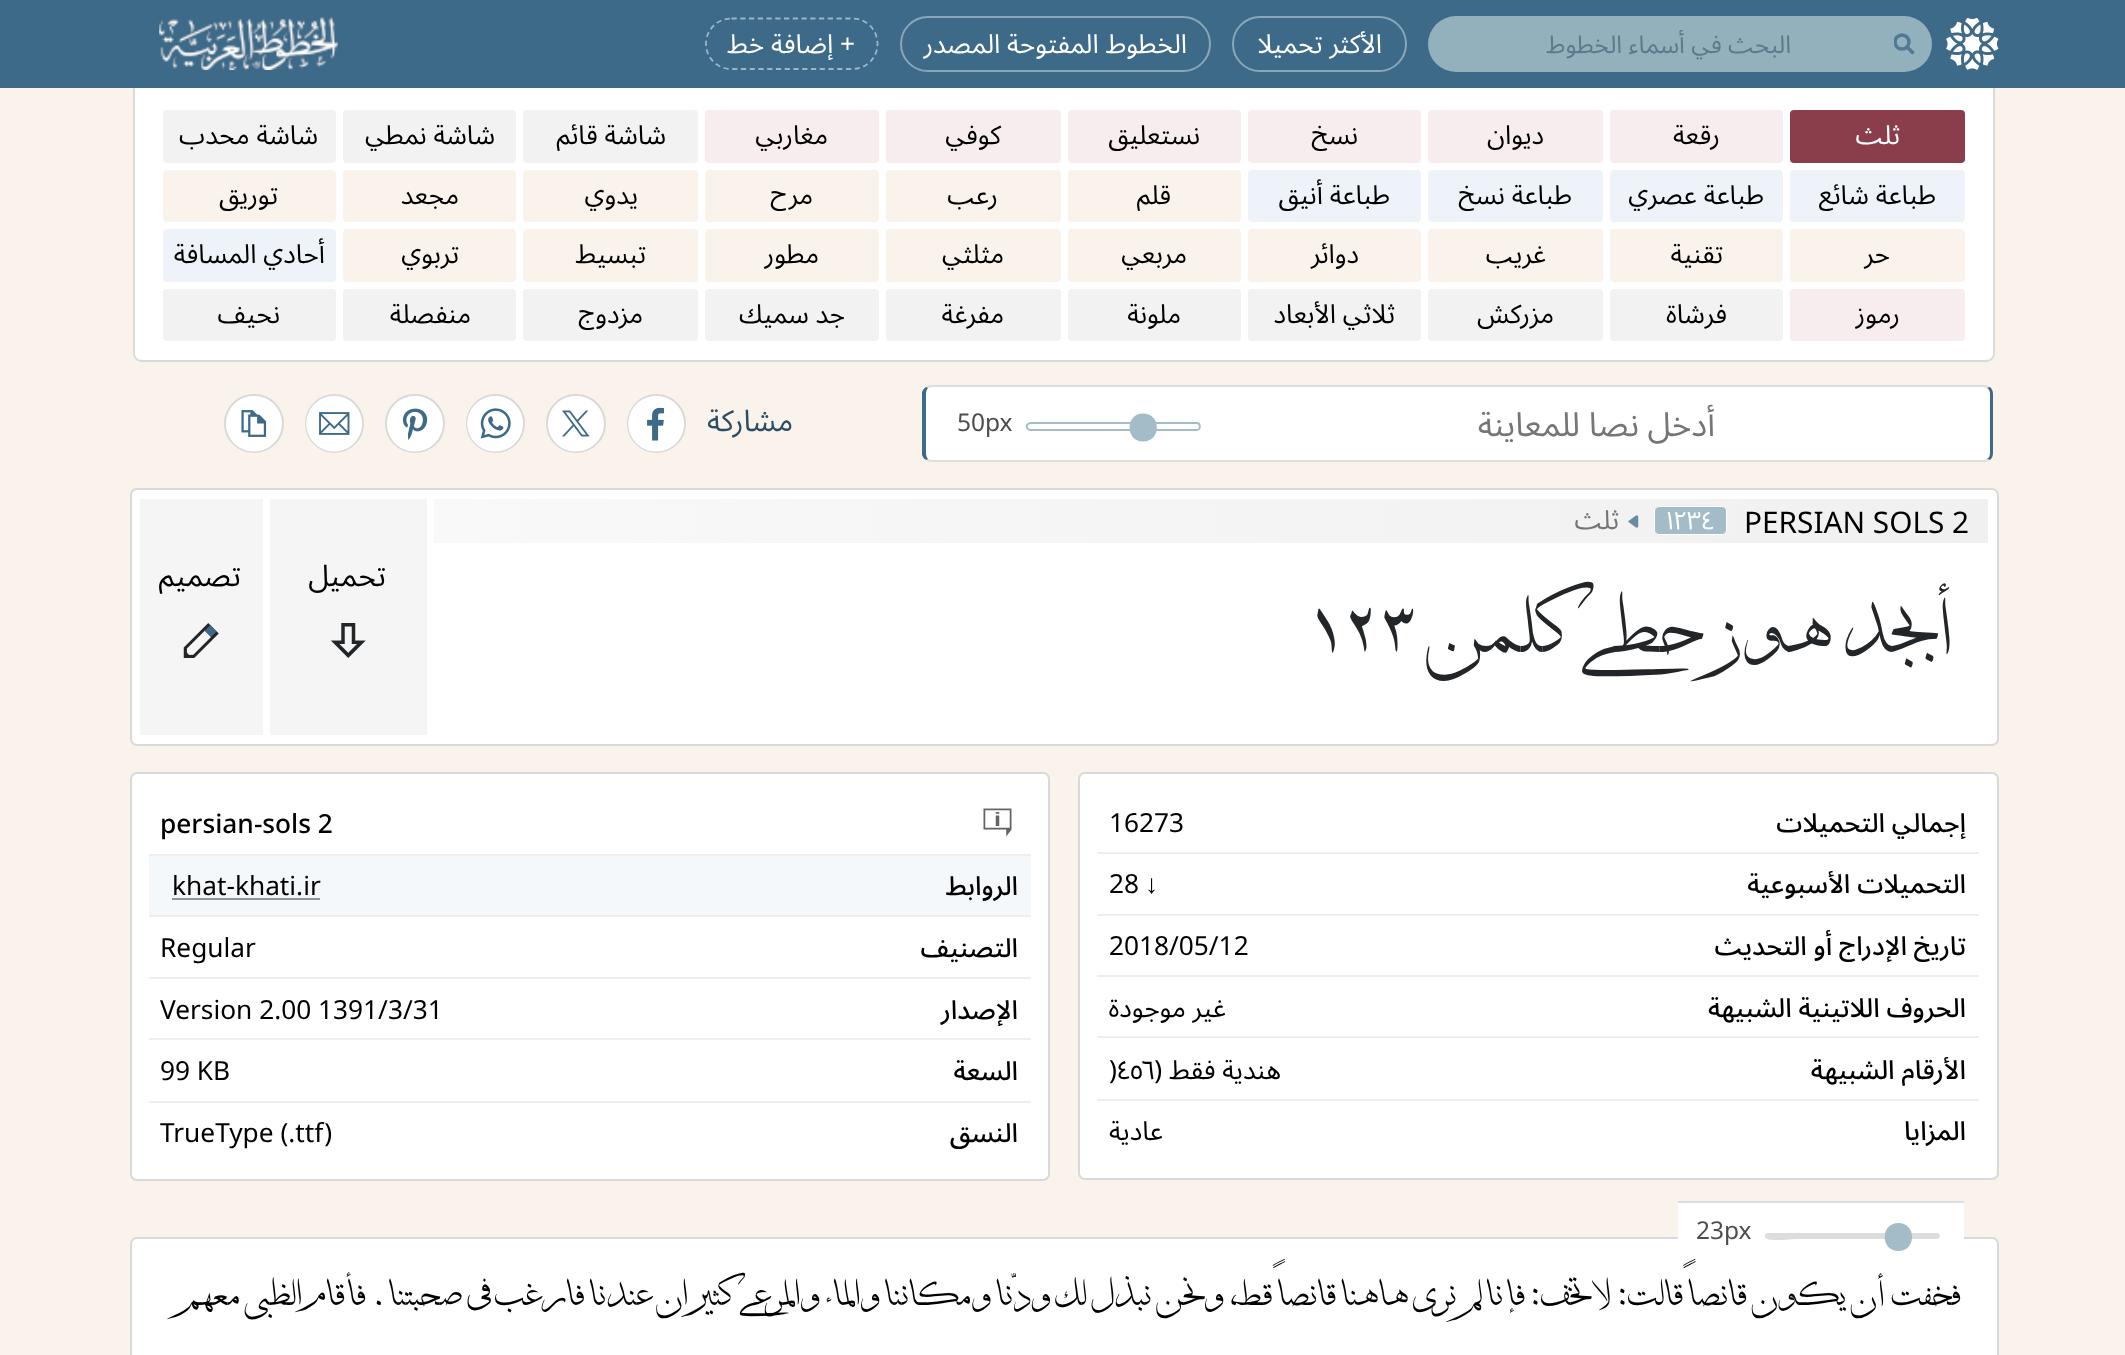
(async () => {
  const canvas = document.querySelector("canvas");
  canvas.width = 2125;
  canvas.height = 1355;
  const ctx = canvas.getContext("2d");
  ctx.miterLimit = 4;
  ctx.fontKerning = "normal";
  async function loadImage(src) {
    const img = new Image();
    img.src = src;
    await img.decode();
    return img;
  }
  let gradient, path;

  ctx.fillStyle = "#f9f3eb";
  ctx.fillRect(0, 0, 2125, 1355);
  ctx.fillStyle = "#3c6a88";
  ctx.fillRect(0, 0, 2125, 88);
  ctx.drawImage(await loadImage("img/1.png"), 1946, 18, 53, 52);
  ctx.fillStyle = "#93b1bd";
  ctx.beginPath();
  ctx.roundRect(1876, 16, 56, 56, [0, 28, 28, 0]);
  ctx.fill();
  path = new Path2D("M1913.5 53.5L1906.5 46.5");
  ctx.strokeStyle = "#507994";
  ctx.lineWidth = 3.5;
  ctx.stroke(path);
  ctx.save();
  ctx.beginPath();
  ctx.rect(1894, 33, 21, 23);
  ctx.clip();
  ctx.beginPath();
  ctx.arc(1902, 42, 7, 0, Math.PI * 2);
  ctx.stroke();
  ctx.restore();
  ctx.beginPath();
  ctx.roundRect(1428, 16, 448, 56, [28, 0, 0, 28]);
  ctx.fill();
  ctx.beginPath();
  ctx.roundRect(1233, 17, 173, 54, 27);
  ctx.strokeStyle = "#8aa6b8";
  ctx.lineWidth = 2;
  ctx.stroke();
  ctx.beginPath();
  ctx.roundRect(901, 17, 309, 54, 27);
  ctx.stroke();
  path = new Path2D("M731.5 18.5H852C866.5 18.5 877.5 29.5 877.5 44C877.5 58 866.5 69 852 69H731.5C717.5 69 706 58 706 44C706 29.5 717.5 18.5 731.5 18.5Z");
  ctx.strokeStyle = "#9eb5c4";
  ctx.lineWidth = 1.8;
  ctx.setLineDash([5.25, 3.5]);
  ctx.stroke(path);
  ctx.drawImage(await loadImage("img/2.png"), 159, 17, 179, 53);
  ctx.fillStyle = "#ffffff";
  ctx.beginPath();
  ctx.roundRect(133, 88, 1862, 274, [0, 0, 9, 9]);
  ctx.fill();
  ctx.fillStyle = "#d9d9d9";
  path = new Path2D("M133 88H1995V354C1995 358 1991 362 1986 362H142C137 362 133 358 133 354ZM135 88H1993V354C1993 357 1990 360 1986 360H142C138 360 135 357 135 354Z");
  ctx.fill(path, "evenodd");
  ctx.fillStyle = "#8a3d4a";
  ctx.beginPath();
  ctx.roundRect(1790, 110, 175, 53, 4);
  ctx.fill();
  ctx.fillStyle = "#f8edee";
  ctx.beginPath();
  ctx.roundRect(1610, 110, 173, 53, 4);
  ctx.fill();
  ctx.beginPath();
  ctx.roundRect(1428, 110, 175, 53, 4);
  ctx.fill();
  ctx.beginPath();
  ctx.roundRect(1248, 110, 173, 53, 4);
  ctx.fill();
  ctx.beginPath();
  ctx.roundRect(1068, 110, 173, 53, 4);
  ctx.fill();
  ctx.beginPath();
  ctx.roundRect(886, 110, 175, 53, 4);
  ctx.fill();
  ctx.beginPath();
  ctx.roundRect(705, 110, 174, 53, 4);
  ctx.fill();
  ctx.fillStyle = "#f2f2f2";
  ctx.beginPath();
  ctx.roundRect(523, 110, 175, 53, 4);
  ctx.fill();
  ctx.beginPath();
  ctx.roundRect(343, 110, 173, 53, 4);
  ctx.fill();
  ctx.beginPath();
  ctx.roundRect(163, 110, 173, 53, 4);
  ctx.fill();
  ctx.fillStyle = "#edf3f8";
  ctx.beginPath();
  ctx.roundRect(1790, 170, 175, 52, 4);
  ctx.fill();
  ctx.beginPath();
  ctx.roundRect(1610, 170, 173, 52, 4);
  ctx.fill();
  ctx.beginPath();
  ctx.roundRect(1428, 170, 175, 52, 4);
  ctx.fill();
  ctx.beginPath();
  ctx.roundRect(1248, 170, 173, 52, 4);
  ctx.fill();
  ctx.fillStyle = "#f9f3ec";
  ctx.beginPath();
  ctx.roundRect(1068, 170, 173, 52, 4);
  ctx.fill();
  ctx.beginPath();
  ctx.roundRect(886, 170, 175, 52, 4);
  ctx.fill();
  ctx.beginPath();
  ctx.roundRect(705, 170, 174, 52, 4);
  ctx.fill();
  ctx.beginPath();
  ctx.roundRect(523, 170, 175, 52, 4);
  ctx.fill();
  ctx.beginPath();
  ctx.roundRect(343, 170, 173, 52, 4);
  ctx.fill();
  ctx.beginPath();
  ctx.roundRect(163, 170, 173, 52, 4);
  ctx.fill();
  ctx.beginPath();
  ctx.roundRect(1790, 229, 175, 53, 4);
  ctx.fill();
  ctx.beginPath();
  ctx.roundRect(1610, 229, 173, 53, 4);
  ctx.fill();
  ctx.beginPath();
  ctx.roundRect(1428, 229, 175, 53, 4);
  ctx.fill();
  ctx.beginPath();
  ctx.roundRect(1248, 229, 173, 53, 4);
  ctx.fill();
  ctx.beginPath();
  ctx.roundRect(1068, 229, 173, 53, 4);
  ctx.fill();
  ctx.beginPath();
  ctx.roundRect(886, 229, 175, 53, 4);
  ctx.fill();
  ctx.beginPath();
  ctx.roundRect(705, 229, 174, 53, 4);
  ctx.fill();
  ctx.beginPath();
  ctx.roundRect(523, 229, 175, 53, 4);
  ctx.fill();
  ctx.beginPath();
  ctx.roundRect(343, 229, 173, 53, 4);
  ctx.fill();
  ctx.fillStyle = "#edf3f8";
  ctx.beginPath();
  ctx.roundRect(163, 229, 173, 53, 4);
  ctx.fill();
  ctx.fillStyle = "#f8edee";
  ctx.beginPath();
  ctx.roundRect(1790, 289, 175, 52, 4);
  ctx.fill();
  ctx.fillStyle = "#f2f2f2";
  ctx.beginPath();
  ctx.roundRect(1610, 289, 173, 52, 4);
  ctx.fill();
  ctx.beginPath();
  ctx.roundRect(1428, 289, 175, 52, 4);
  ctx.fill();
  ctx.beginPath();
  ctx.roundRect(1248, 289, 173, 52, 4);
  ctx.fill();
  ctx.beginPath();
  ctx.roundRect(1068, 289, 173, 52, 4);
  ctx.fill();
  ctx.beginPath();
  ctx.roundRect(886, 289, 175, 52, 4);
  ctx.fill();
  ctx.beginPath();
  ctx.roundRect(705, 289, 174, 52, 4);
  ctx.fill();
  ctx.beginPath();
  ctx.roundRect(523, 289, 175, 52, 4);
  ctx.fill();
  ctx.beginPath();
  ctx.roundRect(343, 289, 173, 52, 4);
  ctx.fill();
  ctx.beginPath();
  ctx.roundRect(163, 289, 173, 52, 4);
  ctx.fill();
  ctx.fillStyle = "#ffffff";
  path = new Path2D("M931 387H1984C1987 387 1990 390 1990 394V453C1990 457 1987 460 1984 460H931C928 460 926 457 926 453V394C926 390 928 387 931 387Z");
  ctx.fill(path);
  ctx.fillStyle = "#dddddd";
  path = new Path2D("M931 385C929 385 927 386 926 387L928 388L931 387H1984L1987 388L1990 387C1988 386 1986 385 1984 385Z");
  ctx.fill(path);
  ctx.fillStyle = "#3c6a88";
  path = new Path2D("M1990 387C1992 389 1993 391 1993 394V453C1993 456 1992 458 1990 460L1987 459C1989 458 1990 456 1990 453V394C1990 391 1989 389 1987 388Z");
  ctx.fill(path);
  ctx.fillStyle = "#dddddd";
  path = new Path2D("M931 462H1984C1986 462 1988 461 1990 460L1987 459L1984 460H931L928 459L926 460C927 461 929 462 931 462Z");
  ctx.fill(path);
  ctx.fillStyle = "#3c6a88";
  path = new Path2D("M922 392C923 390 924 388 926 387L928 388C927 389 926 391 926 394V453C926 456 927 458 928 459L926 460C924 459 923 457 922 455Z");
  ctx.fill(path);
  path = new Path2D("M1196.5 423H1030L1028 424C1025.5 425.5 1027 430 1030 430H1196.5C1201 430 1201 423 1196.5 423Z");
  ctx.strokeStyle = "#a3bcc7";
  ctx.setLineDash([]);
  ctx.stroke(path);
  ctx.fillStyle = "#a3bcc7";
  path = new Path2D("M1143 413.5C1125 413.5 1125 441.5 1143 441.5C1161.5 441.5 1161.5 413.5 1143 413.5Z");
  ctx.fill(path);
  ctx.beginPath();
  ctx.arc(656.5, 423.5, 28.5, 0, Math.PI * 2);
  ctx.strokeStyle = "#d9d9d9";
  ctx.lineWidth = 2;
  ctx.stroke();
  ctx.drawImage(await loadImage("img/3.png"), 628, 396, 56, 56);
  ctx.beginPath();
  ctx.roundRect(547, 395, 58, 57, 28.5);
  ctx.stroke();
  ctx.drawImage(await loadImage("img/4.png"), 548, 396, 56, 56);
  ctx.beginPath();
  ctx.arc(495.5, 423.5, 28.5, 0, Math.PI * 2);
  ctx.stroke();
  ctx.drawImage(await loadImage("img/5.png"), 467, 396, 56, 56);
  ctx.beginPath();
  ctx.roundRect(386, 395, 58, 57, 28.5);
  ctx.stroke();
  ctx.drawImage(await loadImage("img/6.png"), 387, 396, 56, 56);
  ctx.beginPath();
  ctx.arc(334.5, 423.5, 28.5, 0, Math.PI * 2);
  ctx.stroke();
  ctx.drawImage(await loadImage("img/7.png"), 306, 396, 56, 56);
  ctx.beginPath();
  ctx.roundRect(225, 395, 58, 57, 28.5);
  ctx.stroke();
  ctx.drawImage(await loadImage("img/8.png"), 226, 396, 56, 56);
  ctx.fillStyle = "#ffffff";
  ctx.beginPath();
  ctx.roundRect(131, 489, 1867, 256, 6);
  ctx.fill();
  ctx.stroke();
  gradient = ctx.createLinearGradient(1988, 521, 434, 521);
  gradient.addColorStop(0, "#f0f0f0");
  gradient.addColorStop(1, "#f9f9f9");
  ctx.fillStyle = gradient;
  ctx.fillRect(434, 499, 1554, 44);
  ctx.drawImage(await loadImage("img/9.png"), 1654, 506, 73, 29);
  ctx.drawImage(await loadImage("img/10.png"), 1628, 515, 11, 13);
  ctx.fillStyle = "#f5f5f5";
  ctx.fillRect(270, 499, 157, 236);
  ctx.drawImage(await loadImage("img/11.png"), 330, 623, 36, 35);
  ctx.fillRect(140, 499, 123, 236);
  ctx.drawImage(await loadImage("img/12.png"), 183, 623, 36, 35);
  ctx.fillStyle = "#ffffff";
  ctx.beginPath();
  ctx.roundRect(1079, 773, 919, 406, 6);
  ctx.fill();
  ctx.stroke();
  for (const [x, y, w, h, color] of [
    [1097, 852, 882, 2, "#eeeeee"],
    [1097, 914, 882, 2, "#eeeeee"],
    [1097, 975, 882, 2, "#eeeeee"],
    [1097, 1036, 882, 2, "#eeeeee"],
    [1097, 1099, 882, 2, "#eeeeee"],
  ]) {
    ctx.fillStyle = color;
    ctx.fillRect(x, y, w, h);
  }
  ctx.fillStyle = "#ffffff";
  ctx.beginPath();
  ctx.roundRect(131, 773, 918, 407, 6);
  ctx.fill();
  ctx.stroke();
  ctx.drawImage(await loadImage("img/13.png"), 983, 808, 29, 29);
  for (const [x, y, w, h, color] of [
    [149, 856, 882, 59, "#f4f8fa"],
    [149, 854, 882, 2, "#eeeeee"],
    [172, 898, 148, 2, "#949494"],
    [149, 915, 882, 2, "#eeeeee"],
    [149, 977, 882, 2, "#eeeeee"],
    [149, 1038, 882, 2, "#eeeeee"],
    [149, 1101, 882, 2, "#eeeeee"],
  ]) {
    ctx.fillStyle = color;
    ctx.fillRect(x, y, w, h);
  }
  ctx.fillStyle = "#ffffff";
  ctx.beginPath();
  ctx.roundRect(131, 1238, 1867, 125, 6);
  ctx.fill();
  ctx.stroke();
  ctx.fillRect(1678, 1203, 286, 36);
  ctx.fillStyle = "#dddddd";
  ctx.fillRect(1678, 1201, 286, 2);
  path = new Path2D("M1937 1233H1768C1766 1233 1765 1234 1765 1236C1763 1243 1792 1239 1796 1239H1937L1939 1238C1941 1236 1940 1233 1937 1233Z");
  ctx.fill(path);
  ctx.fillStyle = "#a3bcc7";
  path = new Path2D("M1898.5 1223C1880 1223 1880 1251 1898.5 1251C1916.5 1251 1916.5 1223 1898.5 1223Z");
  ctx.fill(path);
  ctx.direction = "rtl";
  ctx.font = "24.5px Noto Sans Arabic UI";
  ctx.fillStyle = "#5b7b8c";
  ctx.fillText("البحث في أسماء الخطوط", 1791, 53);
  ctx.font = "26.25px Noto Sans Arabic UI";
  ctx.fillStyle = "#ffffff";
  for (const [text, x, y] of [
    ["الأكثر تحميلا", 1382, 53],
    ["الخطوط المفتوحة المصدر", 1187, 53],
    ["+ إضافة خط", 855, 53],
    ["ثلث", 1900, 144],
  ]) {
    ctx.fillText(text, x, y);
  }
  ctx.fillStyle = "#000000";
  for (const [text, x, y] of [
    ["رقعة", 1720, 144],
    ["ديوان", 1544, 144],
    ["نسخ", 1358, 144],
    ["نستعليق", 1200, 144],
    ["كوفي", 1001, 144],
    ["مغاربي", 828, 144],
    ["شاشة قائم", 666, 144],
    ["شاشة نمطي", 495, 144],
    ["شاشة محدب", 318, 144],
    ["طباعة شائع", 1936, 204],
    ["طباعة عصري", 1764, 204],
    ["طباعة نسخ", 1572, 204],
    ["طباعة أنيق", 1390, 204],
    ["قلم", 1171, 204],
    ["رعب", 998, 204],
    ["مرح", 813, 204],
    ["يدوي", 638, 204],
    ["مجعد", 459, 204],
    ["توريق", 278, 204],
    ["حر", 1890, 263],
    ["تقنية", 1723, 263],
    ["غريب", 1546, 263],
    ["دوائر", 1359, 263],
    ["مربعي", 1187, 263],
    ["مثلثي", 1004, 263],
    ["مطور", 819, 263],
    ["تبسيط", 646, 263],
    ["تربوي", 459, 263],
    ["أحادي المسافة", 325, 263],
    ["رموز", 1900, 323],
    ["فرشاة", 1727, 323],
    ["مزركش", 1554, 323],
    ["ثلاثي الأبعاد", 1395, 323],
    ["ملونة", 1181, 323],
    ["مفرغة", 1004, 323],
    ["جد سميك", 845, 323],
    ["مزدوج", 643, 323],
    ["منفصلة", 471, 323],
    ["نحيف", 280, 323],
  ]) {
    ctx.fillText(text, x, y);
  }
  ctx.font = "33.25px Noto Sans Arabic UI";
  ctx.fillStyle = "#757575";
  ctx.fillText("أدخل نصا للمعاينة", 1715, 436);
  ctx.direction = "ltr";
  ctx.font = "24.5px Noto Sans Arabic UI";
  ctx.fillStyle = "#4d4d4d";
  ctx.fillText("50px", 957, 431);
  ctx.direction = "rtl";
  ctx.font = "29.75px Noto Sans Arabic UI";
  ctx.fillStyle = "#2c4d63";
  ctx.fillText("مشاركة", 793, 431);
  ctx.direction = "ltr";
  ctx.fillStyle = "#000000";
  ctx.fillText("PERSIAN SOLS 2", 1744, 533);
  ctx.direction = "rtl";
  ctx.font = "26.25px Noto Sans Arabic UI";
  ctx.fillStyle = "#757575";
  ctx.fillText("ثلث", 1619, 529);
  ctx.font = "87.5px 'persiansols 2'";
  ctx.fillStyle = "#232629";
  ctx.fillText("أبجد هوز حطي كلمن", 1959, 652);
  ctx.direction = "ltr";
  ctx.fillText("١٢٣", 1310, 652);
  ctx.direction = "rtl";
  ctx.font = "29.75px Noto Sans Arabic UI";
  ctx.fillStyle = "#000000";
  ctx.fillText("تحميل", 386, 586);
  ctx.fillText("تصميم", 241, 586);
  ctx.font = "500 26.25px Noto Sans Arabic UI";
  ctx.fillText("إجمالي التحميلات", 1966, 832);
  ctx.direction = "ltr";
  ctx.font = "26.25px Noto Sans Arabic UI";
  ctx.fillText("16273", 1109, 832);
  ctx.direction = "rtl";
  ctx.font = "500 26.25px Noto Sans Arabic UI";
  ctx.fillText("التحميلات الأسبوعية", 1966, 893);
  ctx.direction = "ltr";
  ctx.font = "26.25px Liberation Sans";
  ctx.fillText("↓", 1145, 893);
  ctx.font = "26.25px Noto Sans Arabic UI";
  ctx.fillText("28", 1109, 893);
  ctx.direction = "rtl";
  ctx.font = "500 26.25px Noto Sans Arabic UI";
  ctx.fillText("تاريخ الإدراج أو التحديث", 1966, 955);
  ctx.direction = "ltr";
  ctx.font = "26.25px Noto Sans Arabic UI";
  ctx.fillText("2018/05/12", 1109, 955);
  ctx.direction = "rtl";
  ctx.font = "500 26.25px Noto Sans Arabic UI";
  ctx.fillText("الحروف اللاتينية الشبيهة", 1966, 1017);
  ctx.font = "26.25px Noto Sans Arabic UI";
  ctx.fillText("غير موجودة", 1226, 1017);
  ctx.font = "500 26.25px Noto Sans Arabic UI";
  ctx.fillText("الأرقام الشبيهة", 1966, 1079);
  ctx.font = "26.25px Noto Sans Arabic UI";
  ctx.fillText("هندية فقط (", 1281, 1079);
  ctx.direction = "ltr";
  ctx.fillText(")٤٥٦", 1109, 1079);
  ctx.direction = "rtl";
  ctx.font = "500 26.25px Noto Sans Arabic UI";
  ctx.fillText("المزايا", 1966, 1140);
  ctx.font = "26.25px Noto Sans Arabic UI";
  ctx.fillText("عادية", 1163, 1140);
  ctx.direction = "ltr";
  ctx.font = "500 26.25px Noto Sans Arabic UI";
  ctx.fillText("persian-sols 2", 160, 833);
  ctx.direction = "rtl";
  ctx.fillText("الروابط", 1018, 895);
  ctx.direction = "ltr";
  ctx.font = "26.25px Noto Sans Arabic UI";
  ctx.fillText("khat-khati.ir", 172, 895);
  ctx.direction = "rtl";
  ctx.font = "500 26.25px Noto Sans Arabic UI";
  ctx.fillText("التصنيف", 1018, 957);
  ctx.direction = "ltr";
  ctx.font = "26.25px Noto Sans Arabic UI";
  ctx.fillText("Regular", 160, 957);
  ctx.direction = "rtl";
  ctx.font = "500 26.25px Noto Sans Arabic UI";
  ctx.fillText("الإصدار", 1018, 1019);
  ctx.direction = "ltr";
  ctx.font = "26.25px Noto Sans Arabic UI";
  ctx.fillText("Version 2.00 1391/3/31", 160, 1019);
  ctx.direction = "rtl";
  ctx.font = "500 26.25px Noto Sans Arabic UI";
  ctx.fillText("السعة", 1018, 1080);
  ctx.direction = "ltr";
  ctx.font = "26.25px Noto Sans Arabic UI";
  ctx.fillText("99 KB", 160, 1080);
  ctx.direction = "rtl";
  ctx.font = "500 26.25px Noto Sans Arabic UI";
  ctx.fillText("النسق", 1018, 1142);
  ctx.direction = "ltr";
  ctx.font = "26.25px Noto Sans Arabic UI";
  ctx.fillText("TrueType (.ttf)", 160, 1142);
  ctx.font = "24.5px Noto Sans Arabic UI";
  ctx.fillStyle = "#4d4d4d";
  ctx.fillText("23px", 1696, 1239);
  ctx.direction = "rtl";
  ctx.font = "40.25px 'persiansols 2'";
  ctx.fillStyle = "#000000";
  ctx.fillText("فخفت أن يكون قانصاً قالت: لا تخف: فإنا لم نرى هاهنا قانصاً قط، ونحن نبذل لك ودّنا ومكاننا والماء والمرعى كثيران عندنا فارغب في صحبتنا. فأقام الظبي معهم", 1961, 1305);
})();
